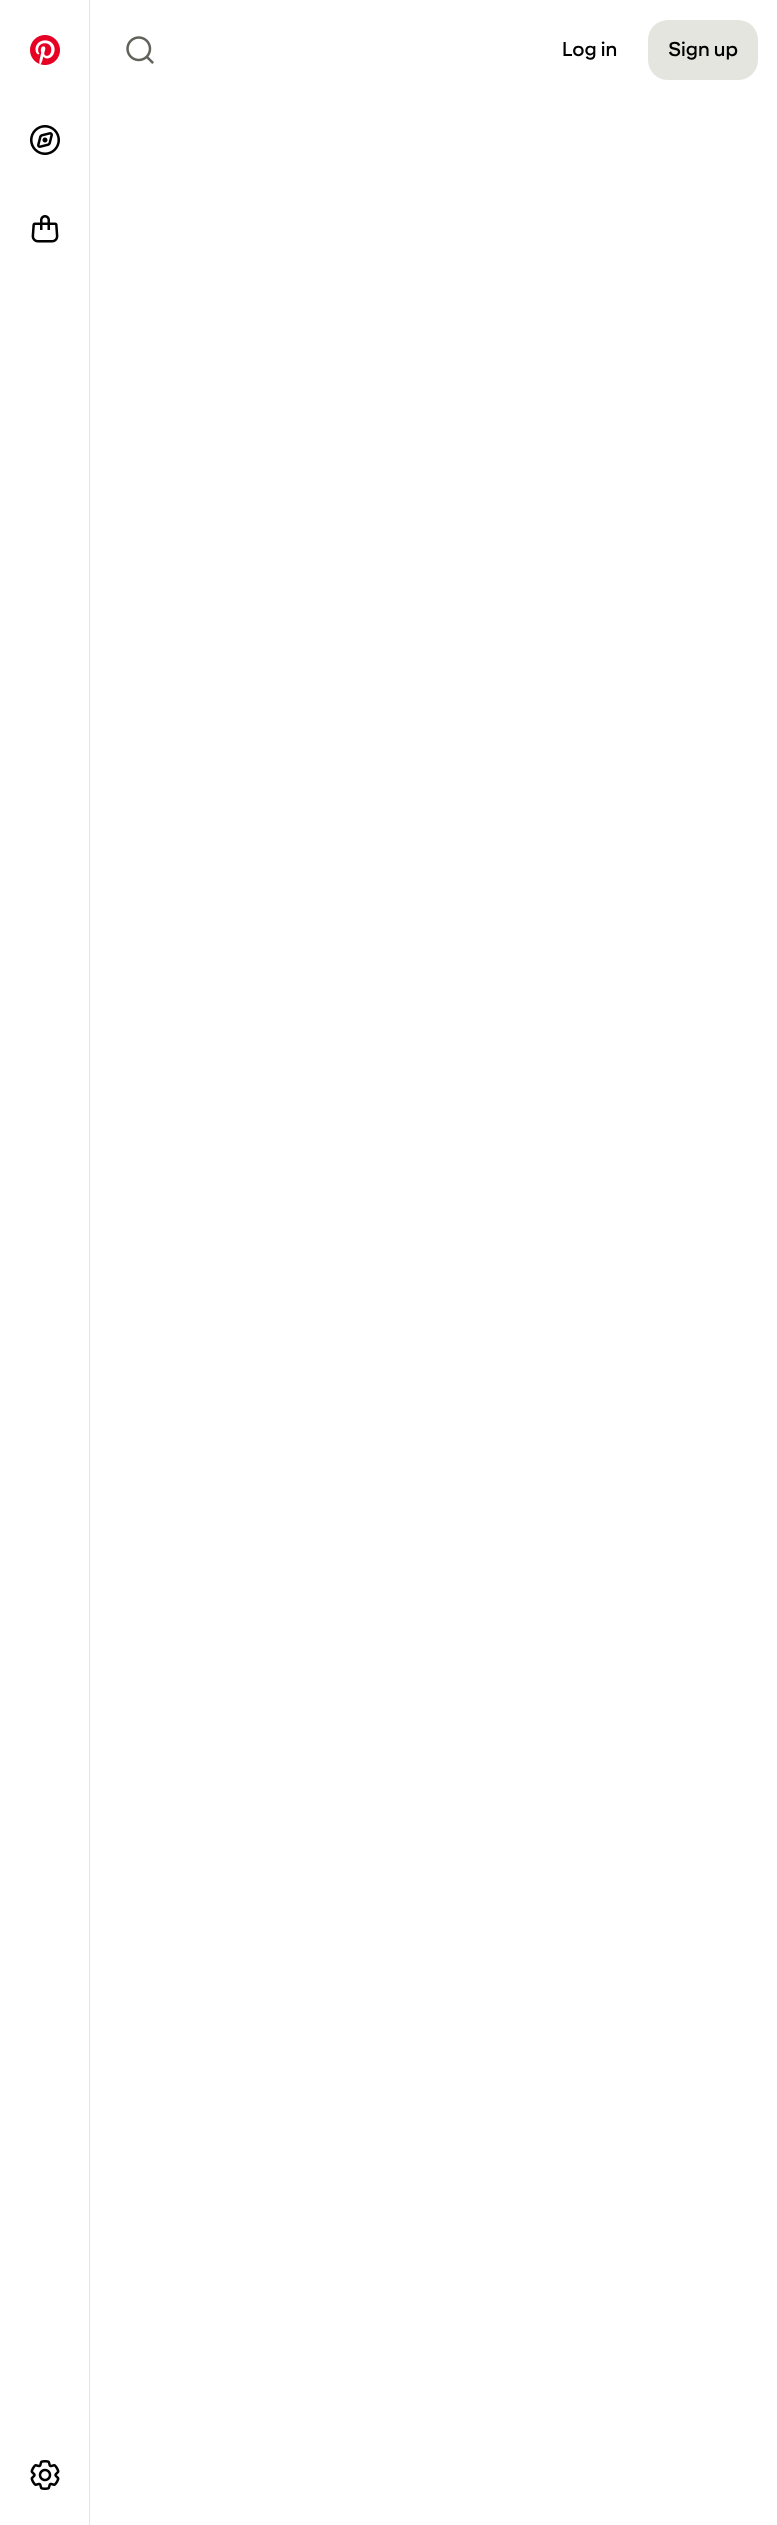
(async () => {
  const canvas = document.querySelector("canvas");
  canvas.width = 777;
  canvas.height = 2525;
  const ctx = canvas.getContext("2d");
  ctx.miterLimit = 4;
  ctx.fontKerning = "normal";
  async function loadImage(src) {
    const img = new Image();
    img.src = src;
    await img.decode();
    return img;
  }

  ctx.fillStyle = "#ffffff";
  ctx.fillRect(0, 0, 777, 2525);
  ctx.fillStyle = "#e5e5e0";
  ctx.fillRect(89, 0, 1, 2525);
  ctx.drawImage(await loadImage("img/1.png"), 30, 35, 30, 30);
  ctx.drawImage(await loadImage("img/2.png"), 30, 125, 30, 30);
  ctx.drawImage(await loadImage("img/3.png"), 31, 215, 28, 28);
  ctx.drawImage(await loadImage("img/4.png"), 30, 2460, 30, 30);
  ctx.drawImage(await loadImage("img/5.png"), 126, 36, 28, 28);
  ctx.beginPath();
  ctx.roundRect(648, 20, 110, 60, 20);
  ctx.fill();
  ctx.font = "500 20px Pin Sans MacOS";
  ctx.fillStyle = "#000000";
  ctx.fillText("Log in", 562, 56);
  ctx.fillText("Sign up", 668, 56);
})();
